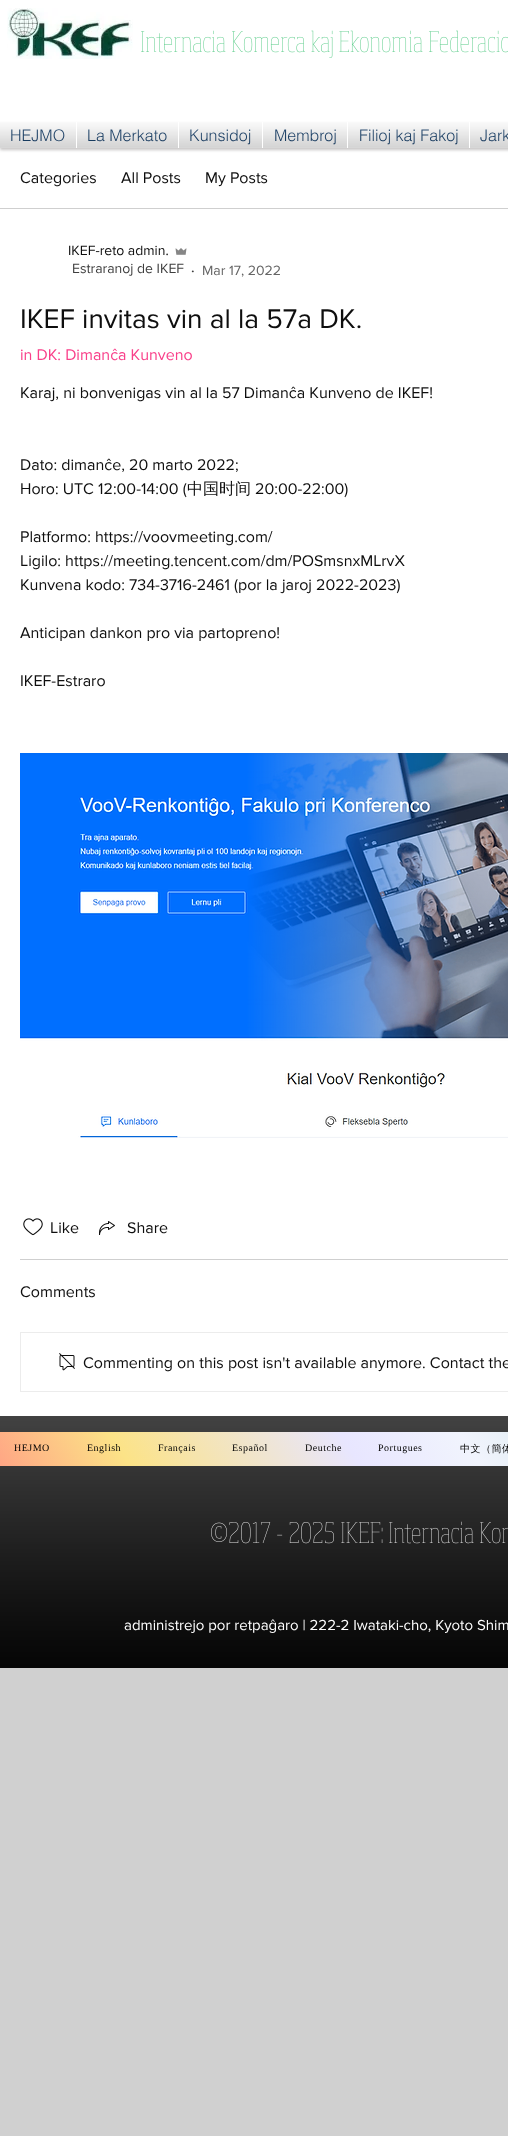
(async () => {
  const canvas = document.querySelector("canvas");
  canvas.width = 508;
  canvas.height = 2136;
  const ctx = canvas.getContext("2d");
  ctx.miterLimit = 4;
  ctx.fontKerning = "normal";
  async function loadImage(src) {
    const img = new Image();
    img.src = src;
    await img.decode();
    return img;
  }
  let gradient;

  ctx.fillStyle = "#d0d0d0";
  ctx.fillRect(0, 0, 508, 2136);
  ctx.fillStyle = "#ffffff";
  ctx.fillRect(0, 0, 508, 122);
  ctx.drawImage(await loadImage("img/1.png"), 7, 8, 126, 51);
  ctx.drawImage(await loadImage("img/2.png"), 141, 30, 367, 28);
  ctx.fillRect(0, 148, 508, 1268);
  ctx.fillStyle = "rgba(162, 158, 158, 0.6)";
  ctx.filter = "blur(1.5px)";
  ctx.beginPath();
  ctx.rect(0, 124, 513, 26);
  ctx.fill();
  ctx.filter = "none";
  ctx.fillStyle = "#ffffff";
  ctx.fillRect(0, 122, 508, 26);
  ctx.fillStyle = "#cfcfcf";
  ctx.fillRect(0, 208, 508, 1);
  ctx.drawImage(await loadImage("img/15.png"), 175, 248, 12, 7);
  ctx.drawImage(await loadImage("img/16.png"), 20, 753, 488, 385);
  ctx.drawImage(await loadImage("img/17.png"), 23, 1218, 20, 18);
  ctx.drawImage(await loadImage("img/18.png"), 99, 1221, 16, 14);
  ctx.fillRect(20, 1259, 488, 1);
  ctx.strokeStyle = "#ececec";
  ctx.strokeRect(20.5, 1332.5, 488, 59);
  ctx.drawImage(await loadImage("img/19.png"), 59, 1353, 16, 18);
  ctx.fillStyle = "#000000";
  ctx.fillRect(0, 1416, 508, 252);
  ctx.drawImage(await loadImage("img/20.png"), 0, 1416, 508, 252);
  gradient = ctx.createLinearGradient(130, 1674, 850, 1224);
  gradient.addColorStop(0, "#ffa685");
  gradient.addColorStop(0.13, "#fce387");
  gradient.addColorStop(0.36, "#e8e6ff");
  gradient.addColorStop(0.48, "#f1f4fd");
  gradient.addColorStop(0.59, "#ddebef");
  gradient.addColorStop(0.76, "#d6e7ec");
  gradient.addColorStop(0.86, "#f1f0ff");
  gradient.addColorStop(0.99, "#a9a5e8");
  ctx.fillStyle = gradient;
  ctx.fillRect(0, 1432, 508, 34);
  ctx.drawImage(await loadImage("img/21.png"), 211, 1521, 297, 23);
  ctx.font = "300 16px helvetica";
  ctx.fillStyle = "#002e5d";
  ctx.fillText("HEJMO", 10, 141);
  ctx.drawImage(await loadImage("img/3.png"), 11, 129, 54, 13);
  ctx.drawImage(await loadImage("img/4.png"), 0, 122, 76, 26);
  ctx.fillText("La Merkato", 87, 141);
  ctx.drawImage(await loadImage("img/5.png"), 88, 129, 79, 13);
  ctx.drawImage(await loadImage("img/6.png"), 77, 122, 101, 26);
  ctx.fillText("Kunsidoj", 189, 141);
  ctx.drawImage(await loadImage("img/7.png"), 190, 129, 61, 16);
  ctx.drawImage(await loadImage("img/8.png"), 179, 122, 83, 26);
  ctx.fillText("Membroj", 274, 141);
  ctx.drawImage(await loadImage("img/9.png"), 274, 129, 62, 16);
  ctx.drawImage(await loadImage("img/10.png"), 263, 122, 84, 26);
  ctx.fillText("Filioj kaj Fakoj", 359, 141);
  ctx.drawImage(await loadImage("img/11.png"), 359, 129, 99, 16);
  ctx.drawImage(await loadImage("img/12.png"), 348, 122, 121, 26);
  ctx.fillText("Jark", 480, 141);
  ctx.drawImage(await loadImage("img/13.png"), 481, 129, 27, 13);
  ctx.drawImage(await loadImage("img/14.png"), 470, 122, 38, 26);
  ctx.font = "16px 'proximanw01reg'";
  ctx.fillStyle = "#0e0e0e";
  for (const [text, x, y] of [
    ["Categories", 20, 183],
    ["All Posts", 121, 183],
    ["My Posts", 205, 183],
  ]) {
    ctx.fillText(text, x, y);
  }
  ctx.font = "14px 'proximanw01reg'";
  ctx.fillText("IKEF-reto admin.", 68, 255);
  ctx.fillStyle = "#3e3e3e";
  ctx.fillText("Estraranoj de IKEF", 72, 273);
  ctx.font = "bold 14px 'proximanw01reg'";
  ctx.fillText("·", 191, 275);
  ctx.font = "14px 'proximanw01reg'";
  ctx.fillStyle = "#656565";
  ctx.fillText("Mar 17, 2022", 202, 275);
  ctx.font = "28px 'proximanw01reg'";
  ctx.fillStyle = "#0e0e0e";
  ctx.fillText("IKEF invitas vin al la 57a DK.", 20, 328);
  ctx.font = "16px 'proximanw01reg'";
  ctx.fillStyle = "#f9408a";
  ctx.fillText("in DK: Dimanĉa Kunveno", 20, 360);
  ctx.fillStyle = "#0e0e0e";
  for (const [text, x, y] of [
    ["Karaj, ni bonvenigas vin al la 57 Dimanĉa Kunveno de IKEF!", 20, 398],
    ["Dato: dimanĉe, 20 marto 2022;", 20, 470],
    ["Horo: UTC 12:00-14:00 (", 20, 494],
  ]) {
    ctx.fillText(text, x, y);
  }
  ctx.font = "500 16px WenQuanYi Zen Hei";
  ctx.fillText("中国时间", 187, 494);
  ctx.font = "16px 'proximanw01reg'";
  for (const [text, x, y] of [
    ["20:00-22:00)", 255, 494],
    ["Platformo: https://voovmeeting.com/", 20, 542],
    ["Ligilo: https://meeting.tencent.com/dm/POSmsnxMLrvX", 20, 566],
    ["Kunvena kodo: 734-3716-2461 (por la jaroj 2022-2023)", 20, 590],
    ["Anticipan dankon pro via partopreno!", 20, 638],
    ["IKEF-Estraro", 20, 686],
    ["Like", 50, 1233],
    ["Share", 127, 1233],
    ["Comments", 20, 1297],
    ["Commenting on this post isn't available anymore. Contact the", 83, 1368],
  ]) {
    ctx.fillText(text, x, y);
  }
  ctx.letterSpacing = "0.5px";
  ctx.font = "10px Liberation Serif";
  ctx.fillStyle = "#000000";
  for (const [text, x, y] of [
    ["HEJMO", 14, 1451],
    ["English", 87, 1451],
    ["Français", 158, 1451],
    ["Español", 232, 1451],
    ["Deutche", 305, 1451],
    ["Portugues", 378, 1451],
  ]) {
    ctx.fillText(text, x, y);
  }
  ctx.font = "500 10px WenQuanYi Zen Hei";
  ctx.fillText("中文（簡体", 460, 1452);
  ctx.letterSpacing = "0px";
  ctx.font = "15px 'proximanw01reg'";
  ctx.fillStyle = "#ffffff";
  ctx.fillText("administrejo por retpaĝaro | 222-2 Iwataki-cho, Kyoto Shim", 124, 1630);
})();
